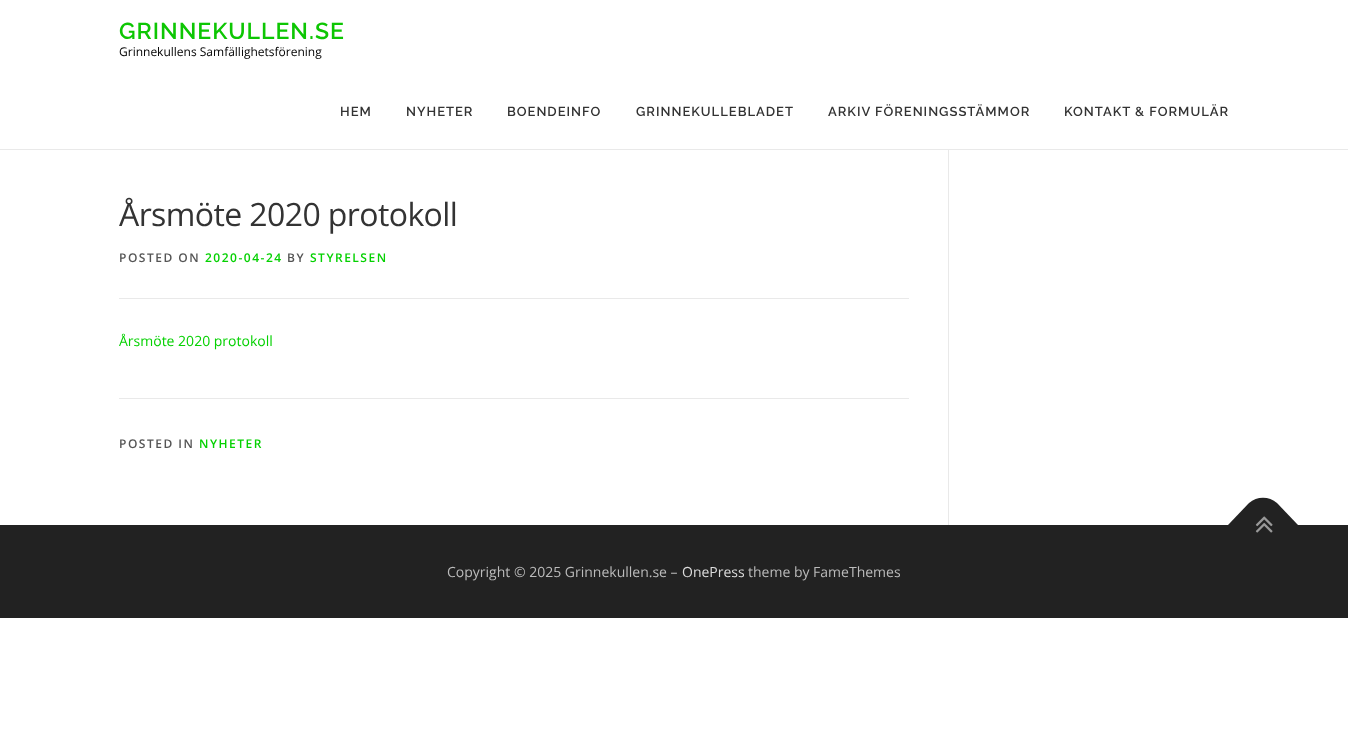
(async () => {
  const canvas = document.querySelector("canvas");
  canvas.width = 1348;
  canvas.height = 752;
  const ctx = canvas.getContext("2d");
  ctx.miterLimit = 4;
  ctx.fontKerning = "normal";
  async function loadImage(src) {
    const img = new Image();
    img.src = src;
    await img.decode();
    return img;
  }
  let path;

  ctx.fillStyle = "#ffffff";
  ctx.fillRect(0, 0, 1348, 752);
  for (const [x, y, w, h, color] of [
    [0, 149, 1348, 1, "#e9e9e9"],
    [948, 150, 1, 375, "#e9e9e9"],
    [119, 298, 790, 1, "#e9e9e9"],
    [119, 398, 790, 1, "#e9e9e9"],
    [0, 525, 1348, 93, "#222222"],
  ]) {
    ctx.fillStyle = color;
    ctx.fillRect(x, y, w, h);
  }
  path = new Path2D("M1228 525L1249 503C1257 496 1269 496 1277 503L1298 525L1263 560Z");
  ctx.fill(path);
  ctx.drawImage(await loadImage("img/1.png"), 1255, 516, 18, 17);
  ctx.letterSpacing = "1px";
  ctx.font = "600 23px Raleway";
  ctx.fillStyle = "#0dc603";
  ctx.fillText("GRINNEKULLEN.SE", 119, 39);
  ctx.letterSpacing = "0px";
  ctx.font = "12px Open Sans";
  ctx.fillStyle = "#000000";
  ctx.fillText("Grinnekullens Samfällighetsförening", 119, 56);
  ctx.letterSpacing = "1px";
  ctx.font = "600 13px Raleway";
  ctx.fillStyle = "#333333";
  for (const [text, x, y] of [
    ["HEM", 340, 116],
    ["NYHETER", 406, 116],
    ["BOENDEINFO", 507, 116],
    ["GRINNEKULLEBLADET", 636, 116],
    ["ARKIV FÖRENINGSSTÄMMOR", 828, 116],
    ["KONTAKT & FORMULÄR", 1064, 116],
  ]) {
    ctx.fillText(text, x, y);
  }
  ctx.letterSpacing = "-0.6px";
  ctx.font = "32px Open Sans";
  ctx.fillText("Årsmöte 2020 protokoll", 119, 226);
  ctx.letterSpacing = "1.5px";
  ctx.font = "600 12px Open Sans";
  ctx.fillStyle = "#555555";
  ctx.fillText("POSTED ON", 119, 262);
  ctx.fillStyle = "#05d102";
  ctx.fillText("2020-04-24", 205, 262);
  ctx.fillStyle = "#555555";
  ctx.fillText("BY", 287, 262);
  ctx.fillStyle = "#05d102";
  ctx.fillText("STYRELSEN", 310, 262);
  ctx.letterSpacing = "0px";
  ctx.font = "14px Open Sans";
  ctx.fillText("Årsmöte 2020 protokoll", 119, 346);
  ctx.letterSpacing = "1.5px";
  ctx.font = "600 12px Open Sans";
  ctx.fillStyle = "#555555";
  ctx.fillText("POSTED IN", 119, 448);
  ctx.fillStyle = "#05d102";
  ctx.fillText("NYHETER", 199, 448);
  ctx.letterSpacing = "0px";
  ctx.font = "14px Open Sans";
  ctx.fillStyle = "#bbbbbb";
  ctx.fillText("Copyright © 2025 Grinnekullen.se –", 447, 577);
  ctx.fillStyle = "#dddddd";
  ctx.fillText("OnePress", 682, 577);
  ctx.fillStyle = "#bbbbbb";
  ctx.fillText("theme by FameThemes", 748, 577);
})();
